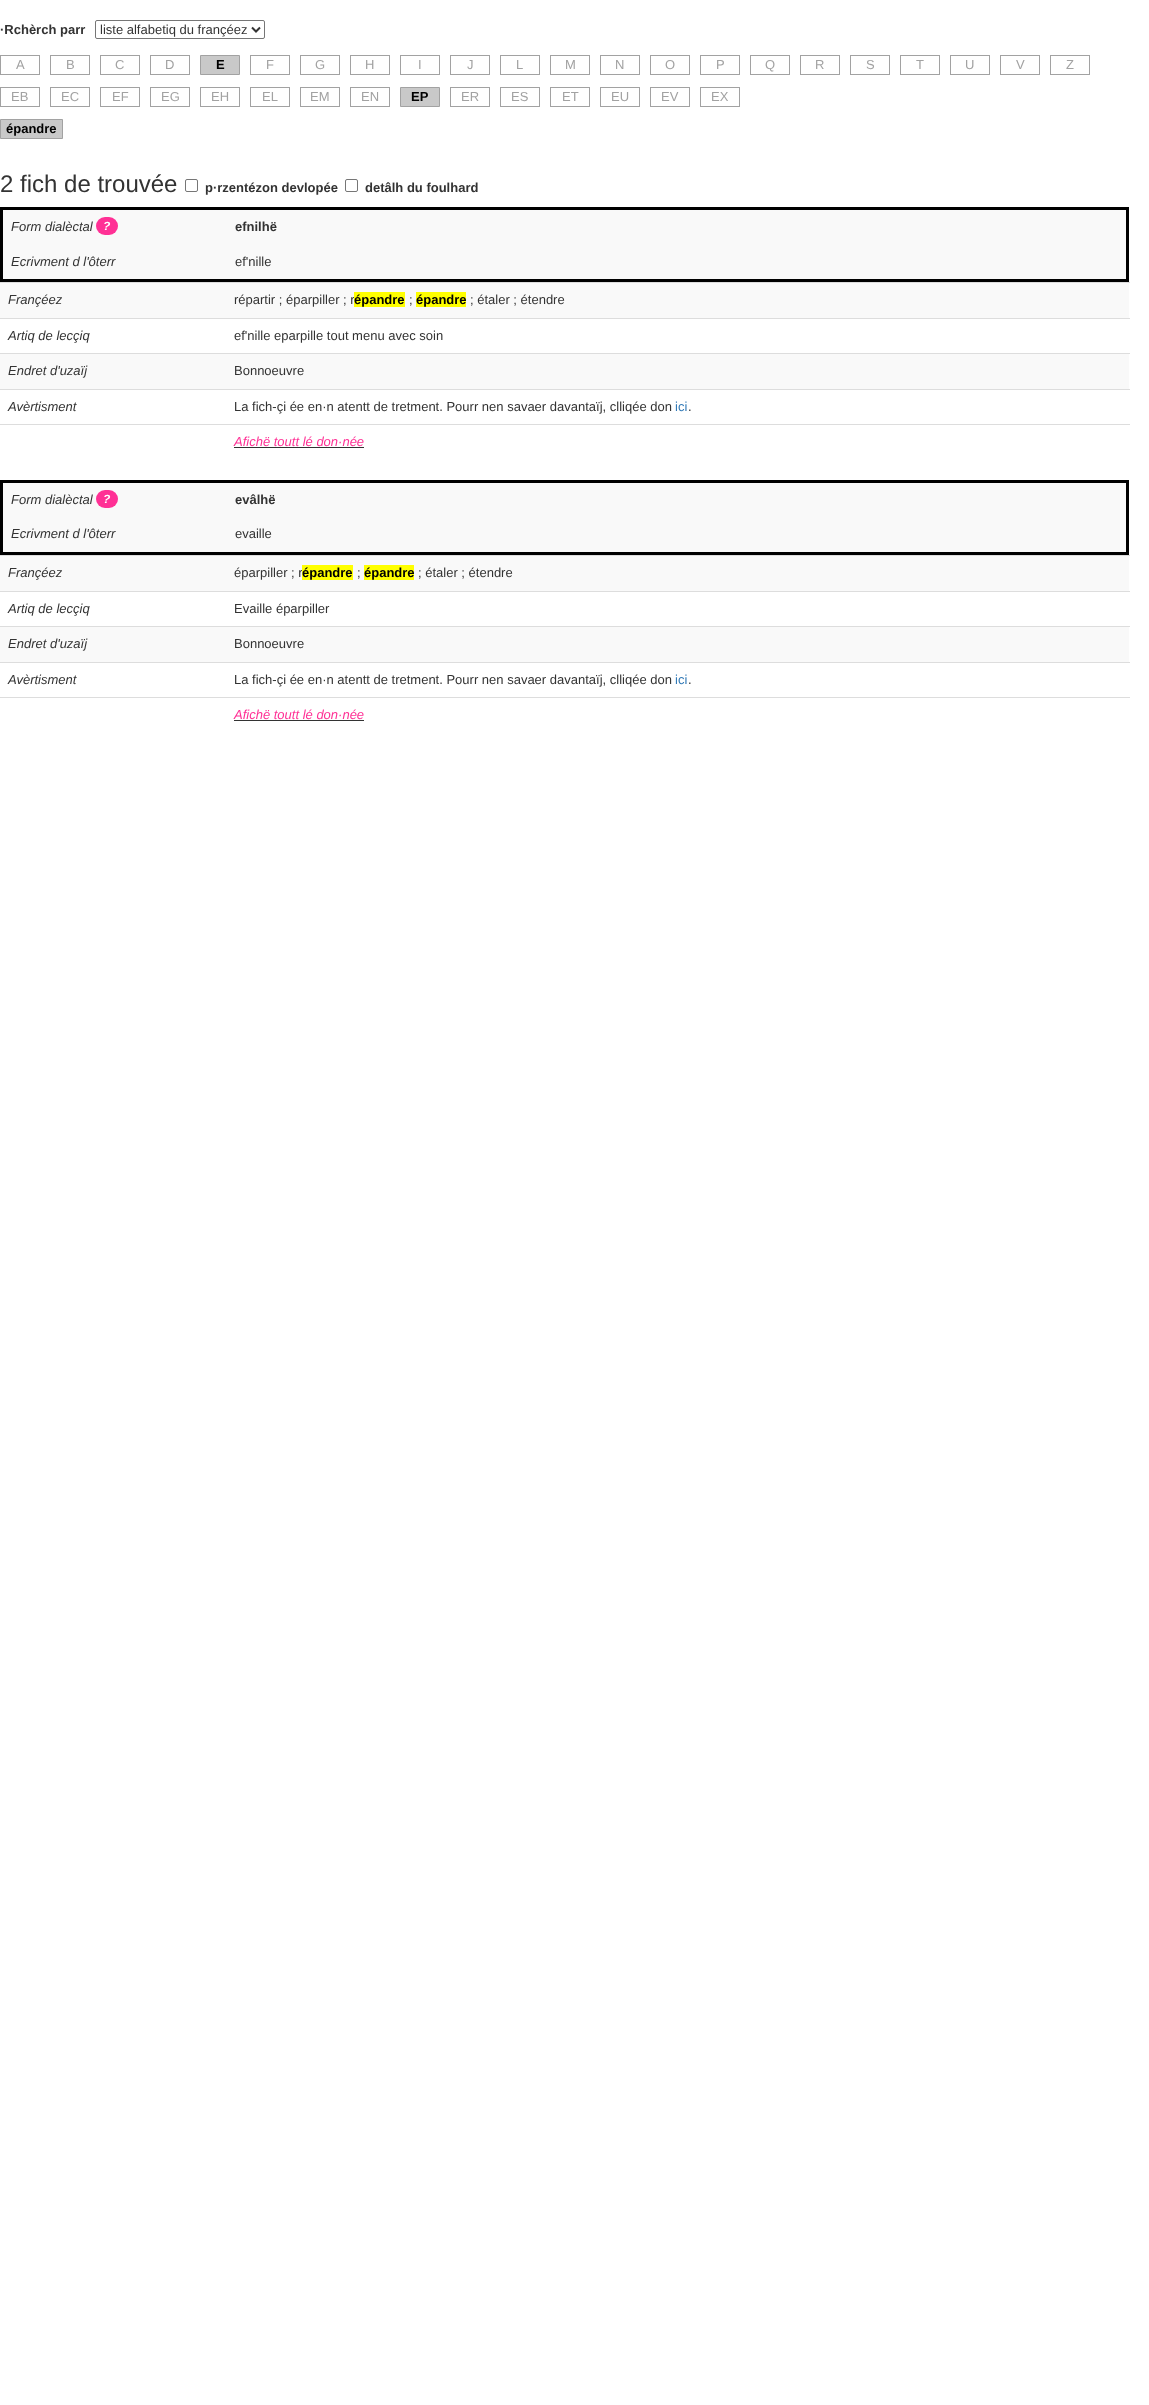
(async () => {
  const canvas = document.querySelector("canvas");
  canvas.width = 1149;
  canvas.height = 2405;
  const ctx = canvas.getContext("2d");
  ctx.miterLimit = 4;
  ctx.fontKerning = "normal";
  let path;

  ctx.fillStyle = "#ffffff";
  ctx.fillRect(0, 0, 1149, 2405);
  ctx.beginPath();
  ctx.roundRect(95.5, 20.5, 169, 18, 1.5);
  ctx.strokeStyle = "#767676";
  ctx.stroke();
  path = new Path2D("M252 27.5L256 31.5L260 27.5");
  ctx.strokeStyle = "#333333";
  ctx.lineWidth = 2;
  ctx.stroke(path);
  ctx.strokeStyle = "#a2a2a2";
  ctx.lineWidth = 1;
  ctx.strokeRect(0.5, 55.5, 39, 19);
  ctx.strokeRect(50.5, 55.5, 39, 19);
  ctx.strokeRect(100.5, 55.5, 39, 19);
  ctx.strokeRect(150.5, 55.5, 39, 19);
  ctx.fillStyle = "#c9c9c9";
  ctx.beginPath();
  ctx.rect(200.5, 55.5, 39, 19);
  ctx.fill();
  ctx.stroke();
  ctx.strokeRect(250.5, 55.5, 39, 19);
  ctx.strokeRect(300.5, 55.5, 39, 19);
  ctx.strokeRect(350.5, 55.5, 39, 19);
  ctx.strokeRect(400.5, 55.5, 39, 19);
  ctx.strokeRect(450.5, 55.5, 39, 19);
  ctx.strokeRect(500.5, 55.5, 39, 19);
  ctx.strokeRect(550.5, 55.5, 39, 19);
  ctx.strokeRect(600.5, 55.5, 39, 19);
  ctx.strokeRect(650.5, 55.5, 39, 19);
  ctx.strokeRect(700.5, 55.5, 39, 19);
  ctx.strokeRect(750.5, 55.5, 39, 19);
  ctx.strokeRect(800.5, 55.5, 39, 19);
  ctx.strokeRect(850.5, 55.5, 39, 19);
  ctx.strokeRect(900.5, 55.5, 39, 19);
  ctx.strokeRect(950.5, 55.5, 39, 19);
  ctx.strokeRect(1000.5, 55.5, 39, 19);
  ctx.strokeRect(1050.5, 55.5, 39, 19);
  ctx.strokeRect(0.5, 87.5, 39, 19);
  ctx.strokeRect(50.5, 87.5, 39, 19);
  ctx.strokeRect(100.5, 87.5, 39, 19);
  ctx.strokeRect(150.5, 87.5, 39, 19);
  ctx.strokeRect(200.5, 87.5, 39, 19);
  ctx.strokeRect(250.5, 87.5, 39, 19);
  ctx.strokeRect(300.5, 87.5, 39, 19);
  ctx.strokeRect(350.5, 87.5, 39, 19);
  ctx.beginPath();
  ctx.rect(400.5, 87.5, 39, 19);
  ctx.fill();
  ctx.stroke();
  ctx.strokeRect(450.5, 87.5, 39, 19);
  ctx.strokeRect(500.5, 87.5, 39, 19);
  ctx.strokeRect(550.5, 87.5, 39, 19);
  ctx.strokeRect(600.5, 87.5, 39, 19);
  ctx.strokeRect(650.5, 87.5, 39, 19);
  ctx.strokeRect(700.5, 87.5, 39, 19);
  ctx.beginPath();
  ctx.rect(0.5, 119.5, 62, 19);
  ctx.fill();
  ctx.stroke();
  ctx.beginPath();
  ctx.roundRect(185.5, 179.5, 12, 12, 1.5);
  ctx.strokeStyle = "#767676";
  ctx.stroke();
  ctx.beginPath();
  ctx.roundRect(345.5, 179.5, 12, 12, 1.5);
  ctx.stroke();
  for (const [x, y, w, h, color] of [
    [3, 210, 1123, 69, "#f9f9f9"],
    [0, 207, 1129, 3, "#000000"],
    [1126, 207, 3, 75, "#000000"],
    [0, 279, 1129, 3, "#000000"],
    [0, 207, 3, 75, "#000000"],
  ]) {
    ctx.fillStyle = color;
    ctx.fillRect(x, y, w, h);
  }
  ctx.fillStyle = "#ff3095";
  ctx.beginPath();
  ctx.roundRect(96, 217, 22, 18, 9);
  ctx.fill();
  for (const [x, y, w, h, color] of [
    [0, 283, 1129, 35, "#f9f9f9"],
    [0, 282, 1130, 1, "#dddddd"],
    [416, 292, 50, 15, "#ffff00"],
    [0, 318, 1130, 1, "#dddddd"],
    [0, 354, 1129, 35, "#f9f9f9"],
    [0, 353, 1130, 1, "#dddddd"],
    [0, 389, 1130, 1, "#dddddd"],
    [0, 424, 1130, 1, "#dddddd"],
    [234, 447, 130, 1, "#333333"],
    [3, 483, 1123, 69, "#f9f9f9"],
    [0, 480, 1129, 3, "#000000"],
    [1126, 480, 3, 75, "#000000"],
    [0, 552, 1129, 3, "#000000"],
    [0, 480, 3, 75, "#000000"],
  ]) {
    ctx.fillStyle = color;
    ctx.fillRect(x, y, w, h);
  }
  ctx.fillStyle = "#ff3095";
  ctx.beginPath();
  ctx.roundRect(96, 490, 22, 18, 9);
  ctx.fill();
  for (const [x, y, w, h, color] of [
    [0, 556, 1129, 35, "#f9f9f9"],
    [0, 555, 1130, 1, "#dddddd"],
    [364, 565, 50, 15, "#ffff00"],
    [0, 591, 1130, 1, "#dddddd"],
    [0, 627, 1129, 35, "#f9f9f9"],
    [0, 626, 1130, 1, "#dddddd"],
    [0, 662, 1130, 1, "#dddddd"],
    [0, 697, 1130, 1, "#dddddd"],
    [234, 720, 130, 1, "#333333"],
  ]) {
    ctx.fillStyle = color;
    ctx.fillRect(x, y, w, h);
  }
  ctx.font = "bold 13px Liberation Sans";
  ctx.fillText("·Rchèrch parr", 0, 34);
  ctx.font = "13px Liberation Sans";
  ctx.fillText("liste alfabetiq du françéez", 100, 34);
  ctx.fillStyle = "#a2a2a2";
  for (const [text, x, y] of [
    ["A", 16, 69],
    ["B", 66, 69],
    ["C", 115, 69],
    ["D", 165, 69],
  ]) {
    ctx.fillText(text, x, y);
  }
  ctx.font = "bold 13px Liberation Sans";
  ctx.fillStyle = "#000000";
  ctx.fillText("E", 216, 69);
  ctx.font = "13px Liberation Sans";
  ctx.fillStyle = "#a2a2a2";
  for (const [text, x, y] of [
    ["F", 266, 69],
    ["G", 315, 69],
    ["H", 365, 69],
    ["I", 418, 69],
    ["J", 467, 69],
    ["L", 516, 69],
    ["M", 565, 69],
    ["N", 615, 69],
    ["O", 665, 69],
    ["P", 716, 69],
    ["Q", 765, 69],
    ["R", 815, 69],
    ["S", 866, 69],
    ["T", 916, 69],
    ["U", 965, 69],
    ["V", 1016, 69],
    ["Z", 1066, 69],
    ["EB", 11, 101],
    ["EC", 61, 101],
    ["EF", 112, 101],
    ["EG", 161, 101],
    ["EH", 211, 101],
    ["EL", 262, 101],
    ["EM", 310, 101],
    ["EN", 361, 101],
  ]) {
    ctx.fillText(text, x, y);
  }
  ctx.font = "bold 13px Liberation Sans";
  ctx.fillStyle = "#000000";
  ctx.fillText("EP", 411, 101);
  ctx.font = "13px Liberation Sans";
  ctx.fillStyle = "#a2a2a2";
  for (const [text, x, y] of [
    ["ER", 461, 101],
    ["ES", 511, 101],
    ["ET", 562, 101],
    ["EU", 611, 101],
    ["EV", 661, 101],
    ["EX", 711, 101],
  ]) {
    ctx.fillText(text, x, y);
  }
  ctx.font = "bold 13px Liberation Sans";
  ctx.fillStyle = "#000000";
  ctx.fillText("épandre", 6, 133);
  ctx.font = "24px Liberation Sans";
  ctx.fillStyle = "#333333";
  ctx.fillText("2 fich de trouvée", 0, 192);
  ctx.font = "bold 13px Liberation Sans";
  ctx.fillText("p·rzentézon devlopée", 205, 192);
  ctx.fillText("detâlh du foulhard", 365, 192);
  ctx.font = "italic 13px Liberation Sans";
  ctx.fillText("Form dialèctal", 11, 231);
  ctx.font = "italic bold 12px Liberation Sans";
  ctx.fillStyle = "#ffffff";
  ctx.fillText("?", 103, 230);
  ctx.font = "bold 13px Liberation Sans";
  ctx.fillStyle = "#333333";
  ctx.fillText("efnilhë", 235, 231);
  ctx.font = "italic 13px Liberation Sans";
  ctx.fillText("Ecrivment d l'ôterr", 11, 266);
  ctx.font = "13px Liberation Sans";
  ctx.fillText("ef'nille", 235, 266);
  ctx.font = "italic 13px Liberation Sans";
  ctx.fillText("Françéez", 8, 304);
  ctx.font = "13px Liberation Sans";
  ctx.fillText("répartir ; éparpiller ; r", 234, 304);
  ctx.fillStyle = "#ffff00";
  ctx.fillRect(354, 292, 51, 15);
  ctx.font = "bold 13px Liberation Sans";
  ctx.fillStyle = "#000000";
  ctx.fillText("épandre", 354, 304);
  ctx.font = "13px Liberation Sans";
  ctx.fillStyle = "#333333";
  ctx.fillText(";", 409, 304);
  ctx.font = "bold 13px Liberation Sans";
  ctx.fillStyle = "#000000";
  ctx.fillText("épandre", 416, 304);
  ctx.font = "13px Liberation Sans";
  ctx.fillStyle = "#333333";
  ctx.fillText("; étaler ; étendre", 470, 304);
  ctx.font = "italic 13px Liberation Sans";
  ctx.fillText("Artiq de lecçiq", 8, 340);
  ctx.font = "13px Liberation Sans";
  ctx.fillText("ef'nille eparpille tout menu avec soin", 234, 340);
  ctx.font = "italic 13px Liberation Sans";
  ctx.fillText("Endret d'uzaïj", 8, 375);
  ctx.font = "13px Liberation Sans";
  ctx.fillText("Bonnoeuvre", 234, 375);
  ctx.font = "italic 13px Liberation Sans";
  ctx.fillText("Avèrtisment", 8, 411);
  ctx.font = "13px Liberation Sans";
  ctx.fillText("La fich-çi ée en·n atentt de tretment. Pourr nen savaer davantaïj, clliqée don", 234, 411);
  ctx.fillStyle = "#337ab7";
  ctx.fillText("ici", 675, 411);
  ctx.fillStyle = "#333333";
  ctx.fillText(".", 688, 411);
  ctx.font = "italic 13px Liberation Sans";
  ctx.fillStyle = "#ff3095";
  ctx.fillText("Afichë toutt lé don·née", 234, 446);
  ctx.fillStyle = "#333333";
  ctx.fillText("Form dialèctal", 11, 504);
  ctx.font = "italic bold 12px Liberation Sans";
  ctx.fillStyle = "#ffffff";
  ctx.fillText("?", 103, 503);
  ctx.font = "bold 13px Liberation Sans";
  ctx.fillStyle = "#333333";
  ctx.fillText("evâlhë", 235, 504);
  ctx.font = "italic 13px Liberation Sans";
  ctx.fillText("Ecrivment d l'ôterr", 11, 538);
  ctx.font = "13px Liberation Sans";
  ctx.fillText("evaille", 235, 538);
  ctx.font = "italic 13px Liberation Sans";
  ctx.fillText("Françéez", 8, 577);
  ctx.font = "13px Liberation Sans";
  ctx.fillText("éparpiller ; r", 234, 577);
  ctx.fillStyle = "#ffff00";
  ctx.fillRect(302, 565, 51, 15);
  ctx.font = "bold 13px Liberation Sans";
  ctx.fillStyle = "#000000";
  ctx.fillText("épandre", 302, 577);
  ctx.font = "13px Liberation Sans";
  ctx.fillStyle = "#333333";
  ctx.fillText(";", 357, 577);
  ctx.font = "bold 13px Liberation Sans";
  ctx.fillStyle = "#000000";
  ctx.fillText("épandre", 364, 577);
  ctx.font = "13px Liberation Sans";
  ctx.fillStyle = "#333333";
  ctx.fillText("; étaler ; étendre", 418, 577);
  ctx.font = "italic 13px Liberation Sans";
  ctx.fillText("Artiq de lecçiq", 8, 613);
  ctx.font = "13px Liberation Sans";
  ctx.fillText("Evaille éparpiller", 234, 613);
  ctx.font = "italic 13px Liberation Sans";
  ctx.fillText("Endret d'uzaïj", 8, 648);
  ctx.font = "13px Liberation Sans";
  ctx.fillText("Bonnoeuvre", 234, 648);
  ctx.font = "italic 13px Liberation Sans";
  ctx.fillText("Avèrtisment", 8, 684);
  ctx.font = "13px Liberation Sans";
  ctx.fillText("La fich-çi ée en·n atentt de tretment. Pourr nen savaer davantaïj, clliqée don", 234, 684);
  ctx.fillStyle = "#337ab7";
  ctx.fillText("ici", 675, 684);
  ctx.fillStyle = "#333333";
  ctx.fillText(".", 688, 684);
  ctx.font = "italic 13px Liberation Sans";
  ctx.fillStyle = "#ff3095";
  ctx.fillText("Afichë toutt lé don·née", 234, 719);
})();
